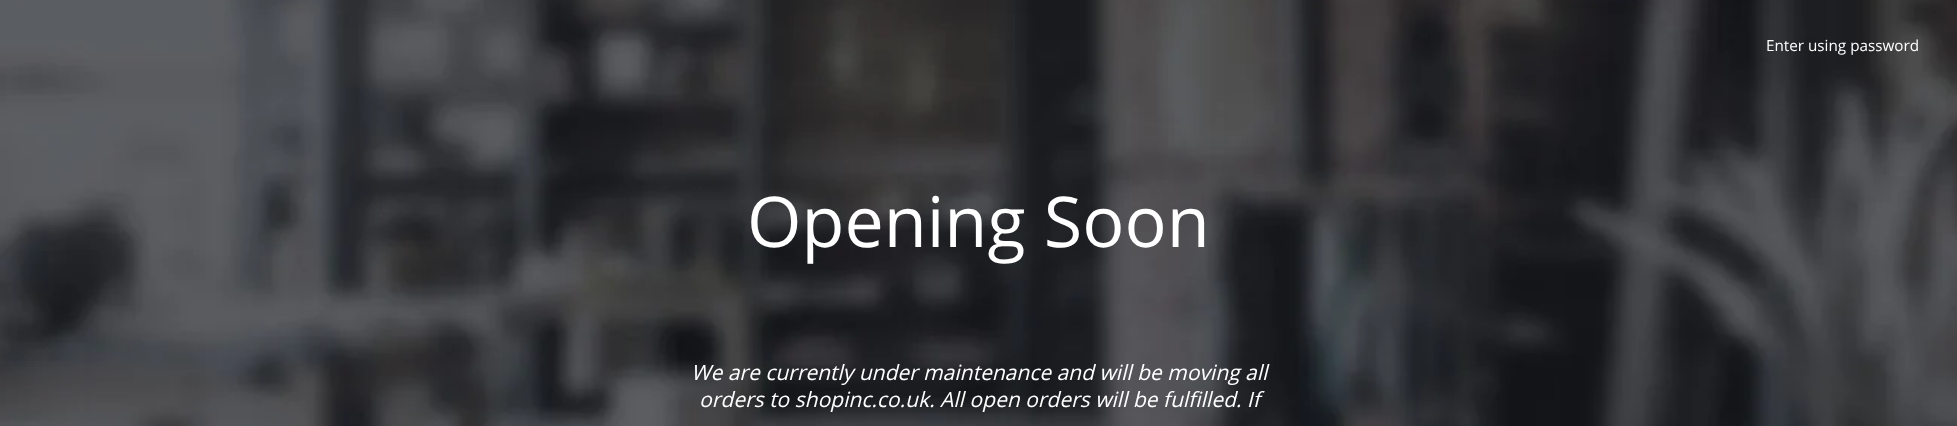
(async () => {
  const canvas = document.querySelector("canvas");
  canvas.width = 1957;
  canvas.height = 426;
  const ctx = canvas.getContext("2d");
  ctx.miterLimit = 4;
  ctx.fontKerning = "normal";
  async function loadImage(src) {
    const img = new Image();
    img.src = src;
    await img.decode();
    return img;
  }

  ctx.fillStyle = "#ffffff";
  ctx.fillRect(0, 0, 1957, 426);
  ctx.drawImage(await loadImage("img/1.png"), 0, 0, 1957, 426);
  ctx.font = "15.25px Open Sans";
  ctx.fillText("Enter using password", 1766, 51);
  ctx.font = "70px Open Sans";
  ctx.fillText("Opening Soon", 747, 247);
  ctx.font = "italic 21px Open Sans";
  ctx.fillText("We are currently under maintenance and will be moving all", 691, 380);
  ctx.fillText("orders to shopinc.co.uk. All open orders will be fulfilled. If", 699, 407);
})();
